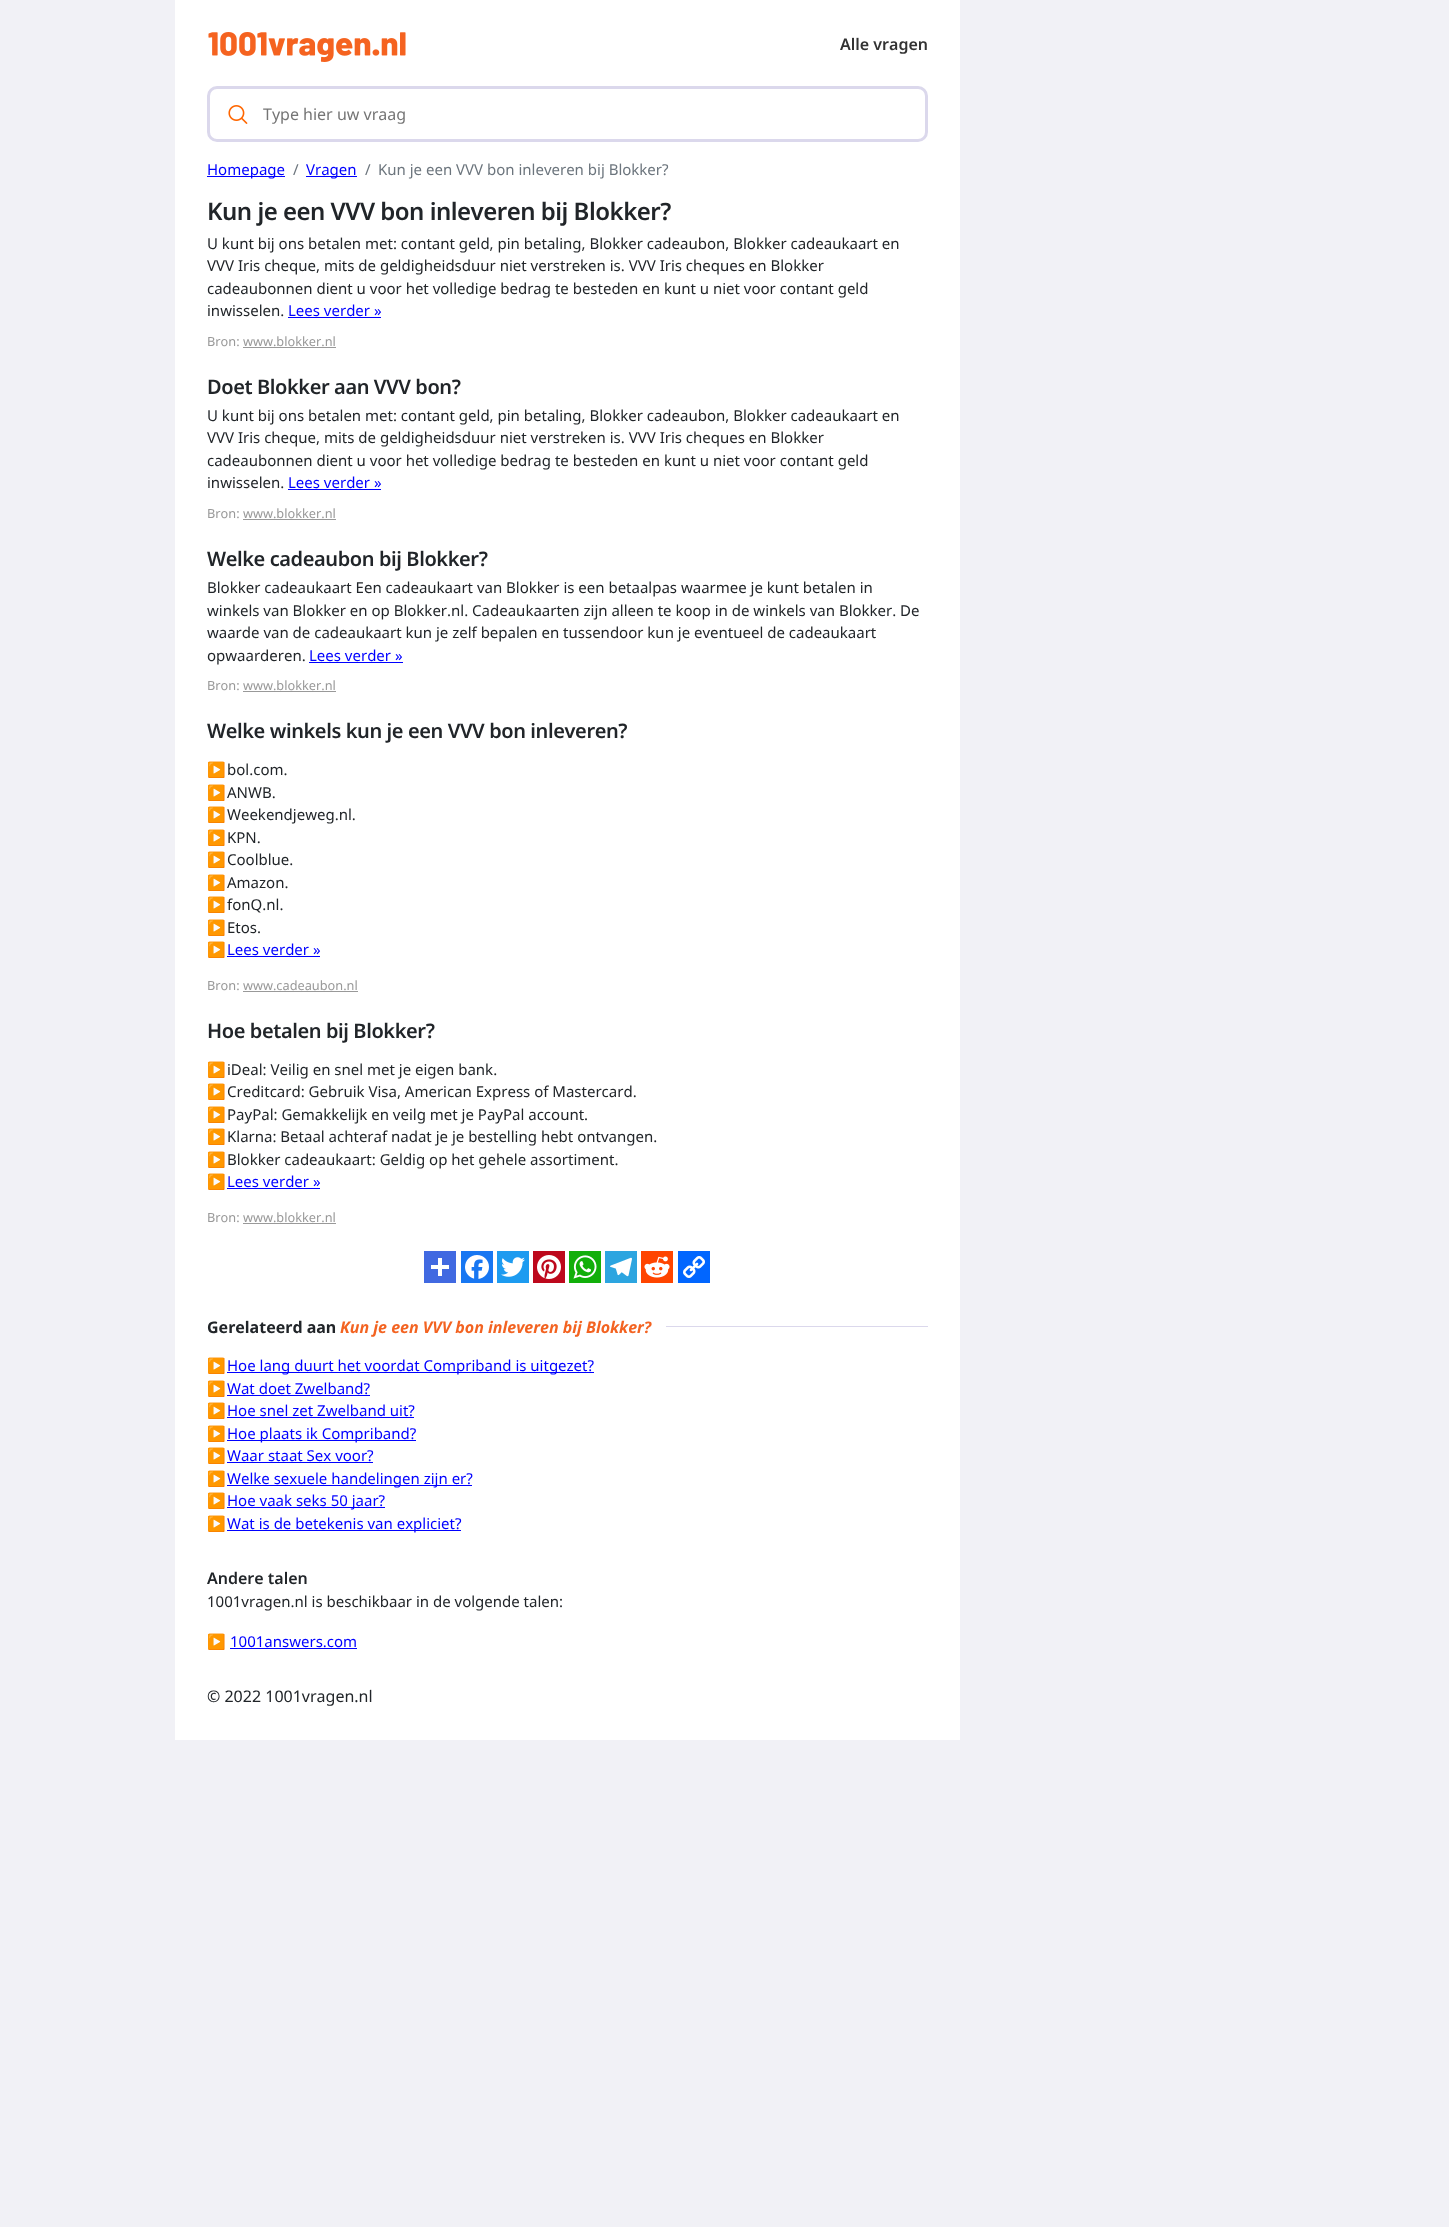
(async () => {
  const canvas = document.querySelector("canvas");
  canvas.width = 1449;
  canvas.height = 2227;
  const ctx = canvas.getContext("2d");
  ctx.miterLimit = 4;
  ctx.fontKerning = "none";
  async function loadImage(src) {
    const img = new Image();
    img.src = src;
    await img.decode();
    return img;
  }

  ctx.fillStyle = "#f1f1f6";
  ctx.fillRect(0, 0, 1449, 2227);
  ctx.fillStyle = "#ffffff";
  ctx.fillRect(175, 0, 785, 1740);
  ctx.drawImage(await loadImage("img/1.png"), 208, 32, 198, 30);
  ctx.beginPath();
  ctx.roundRect(208.5, 87.5, 718, 53, 8.5);
  ctx.strokeStyle = "#dbd8ec";
  ctx.lineWidth = 3;
  ctx.stroke();
  ctx.drawImage(await loadImage("img/2.png"), 228, 105, 20, 19);
  for (const [x, y, w, h, color] of [
    [207, 176, 78, 1, "#0000ff"],
    [306, 176, 51, 1, "#0000ff"],
    [288, 317, 93, 1, "#0000ff"],
    [243, 347, 93, 1, "#999999"],
    [288, 489, 93, 1, "#0000ff"],
    [243, 519, 93, 1, "#999999"],
    [309, 662, 94, 1, "#0000ff"],
    [243, 691, 93, 1, "#999999"],
    [227, 956, 93, 1, "#0000ff"],
    [243, 991, 115, 1, "#999999"],
    [227, 1188, 93, 1, "#0000ff"],
    [243, 1223, 93, 1, "#999999"],
    [424, 1251, 32, 32, "#4169e1"],
    [461, 1251, 32, 32, "#1877f2"],
    [497, 1251, 32, 32, "#1d9bf0"],
    [533, 1251, 32, 32, "#bd081c"],
    [569, 1251, 32, 32, "#12af0a"],
    [605, 1251, 32, 32, "#2ca5e0"],
    [641, 1251, 32, 32, "#ff4500"],
    [678, 1251, 32, 32, "#0166ff"],
    [438, 1258, 4, 18, "#ffffff"],
  ]) {
    ctx.fillStyle = color;
    ctx.fillRect(x, y, w, h);
  }
  ctx.drawImage(await loadImage("img/3.png"), 465, 1255, 24, 24);
  ctx.drawImage(await loadImage("img/4.png"), 501, 1257, 24, 20);
  ctx.drawImage(await loadImage("img/5.png"), 537, 1255, 24, 24);
  ctx.drawImage(await loadImage("img/6.png"), 573, 1255, 24, 24);
  ctx.drawImage(await loadImage("img/7.png"), 610, 1257, 22, 20);
  ctx.drawImage(await loadImage("img/8.png"), 644, 1256, 26, 22);
  ctx.drawImage(await loadImage("img/9.png"), 683, 1256, 22, 22);
  for (const [x, y, w, h, color] of [
    [431, 1265, 18, 4, "#ffffff"],
    [666, 1326, 262, 1, "#dbd8ec"],
    [227, 1372, 367, 1, "#0000ff"],
    [227, 1395, 143, 1, "#0000ff"],
    [227, 1417, 187, 1, "#0000ff"],
    [227, 1440, 189, 1, "#0000ff"],
    [227, 1462, 146, 1, "#0000ff"],
    [227, 1485, 245, 1, "#0000ff"],
    [227, 1507, 158, 1, "#0000ff"],
    [227, 1530, 234, 1, "#0000ff"],
    [230, 1648, 127, 1, "#0000ff"],
  ]) {
    ctx.fillStyle = color;
    ctx.fillRect(x, y, w, h);
  }
  ctx.font = "600 16px Noto Sans";
  ctx.fillStyle = "#333333";
  ctx.fillText("Alle vragen", 840, 50);
  ctx.font = "16px Noto Sans";
  ctx.fillStyle = "#757575";
  ctx.fillText("Type hier uw vraag", 263, 120);
  ctx.font = "15px Noto Sans";
  ctx.fillStyle = "#0000ff";
  ctx.fillText("Homepage", 207, 175);
  ctx.fillStyle = "#6c757d";
  ctx.fillText("/", 293, 175);
  ctx.fillStyle = "#0000ff";
  ctx.fillText("Vragen", 306, 175);
  ctx.fillStyle = "#6c757d";
  ctx.fillText("/", 365, 175);
  ctx.fillText("Kun je een VVV bon inleveren bij Blokker?", 378, 175);
  ctx.letterSpacing = "-0.5px";
  ctx.font = "600 24px Noto Sans";
  ctx.fillStyle = "#212529";
  ctx.fillText("Kun je een VVV bon inleveren bij Blokker?", 207, 220);
  ctx.letterSpacing = "0px";
  ctx.font = "15px Noto Sans";
  for (const [text, x, y] of [
    ["U kunt bij ons betalen met: contant geld, pin betaling, Blokker cadeaubon, Blokker cadeaukaart en", 207, 249],
    ["VVV Iris cheque, mits de geldigheidsduur niet verstreken is. VVV Iris cheques en Blokker", 207, 271],
    ["cadeaubonnen dient u voor het volledige bedrag te besteden en kunt u niet voor contant geld", 207, 294],
    ["inwisselen.", 207, 316],
  ]) {
    ctx.fillText(text, x, y);
  }
  ctx.fillStyle = "#0000ff";
  ctx.fillText("Lees verder »", 288, 316);
  ctx.font = "12.75px Noto Sans";
  ctx.fillStyle = "#999999";
  ctx.fillText("Bron: www.blokker.nl", 207, 346);
  ctx.letterSpacing = "-0.4px";
  ctx.font = "600 20px Noto Sans";
  ctx.fillStyle = "#212529";
  ctx.fillText("Doet Blokker aan VVV bon?", 207, 394);
  ctx.letterSpacing = "0px";
  ctx.font = "15px Noto Sans";
  for (const [text, x, y] of [
    ["U kunt bij ons betalen met: contant geld, pin betaling, Blokker cadeaubon, Blokker cadeaukaart en", 207, 421],
    ["VVV Iris cheque, mits de geldigheidsduur niet verstreken is. VVV Iris cheques en Blokker", 207, 443],
    ["cadeaubonnen dient u voor het volledige bedrag te besteden en kunt u niet voor contant geld", 207, 466],
    ["inwisselen.", 207, 488],
  ]) {
    ctx.fillText(text, x, y);
  }
  ctx.fillStyle = "#0000ff";
  ctx.fillText("Lees verder »", 288, 488);
  ctx.font = "12.75px Noto Sans";
  ctx.fillStyle = "#999999";
  ctx.fillText("Bron: www.blokker.nl", 207, 518);
  ctx.letterSpacing = "-0.4px";
  ctx.font = "600 20px Noto Sans";
  ctx.fillStyle = "#212529";
  ctx.fillText("Welke cadeaubon bij Blokker?", 207, 566);
  ctx.letterSpacing = "0px";
  ctx.font = "15px Noto Sans";
  for (const [text, x, y] of [
    ["Blokker cadeaukaart Een cadeaukaart van Blokker is een betaalpas waarmee je kunt betalen in", 207, 593],
    ["winkels van Blokker en op Blokker.nl. Cadeaukaarten zijn alleen te koop in de winkels van Blokker.", 207, 616],
    ["De", 900, 616],
    ["waarde van de cadeaukaart kun je zelf bepalen en tussendoor kun je eventueel de cadeaukaart", 207, 638],
    ["opwaarderen.", 207, 661],
  ]) {
    ctx.fillText(text, x, y);
  }
  ctx.fillStyle = "#0000ff";
  ctx.fillText("Lees verder »", 309, 661);
  ctx.font = "12.75px Noto Sans";
  ctx.fillStyle = "#999999";
  ctx.fillText("Bron: www.blokker.nl", 207, 690);
  ctx.letterSpacing = "-0.4px";
  ctx.font = "600 20px Noto Sans";
  ctx.fillStyle = "#212529";
  ctx.fillText("Welke winkels kun je een VVV bon inleveren?", 207, 738);
  ctx.letterSpacing = "0px";
  ctx.font = "15px Noto Color Emoji";
  ctx.fillStyle = "#333333";
  ctx.fillText("▶", 207, 775);
  ctx.font = "15px Noto Sans";
  ctx.fillStyle = "#212529";
  ctx.fillText("bol.com.", 227, 775);
  ctx.font = "15px Noto Color Emoji";
  ctx.fillStyle = "#333333";
  ctx.fillText("▶", 207, 798);
  ctx.font = "15px Noto Sans";
  ctx.fillStyle = "#212529";
  ctx.fillText("ANWB.", 227, 798);
  ctx.font = "15px Noto Color Emoji";
  ctx.fillStyle = "#333333";
  ctx.fillText("▶", 207, 820);
  ctx.font = "15px Noto Sans";
  ctx.fillStyle = "#212529";
  ctx.fillText("Weekendjeweg.nl.", 227, 820);
  ctx.font = "15px Noto Color Emoji";
  ctx.fillStyle = "#333333";
  ctx.fillText("▶", 207, 843);
  ctx.font = "15px Noto Sans";
  ctx.fillStyle = "#212529";
  ctx.fillText("KPN.", 227, 843);
  ctx.font = "15px Noto Color Emoji";
  ctx.fillStyle = "#333333";
  ctx.fillText("▶", 207, 865);
  ctx.font = "15px Noto Sans";
  ctx.fillStyle = "#212529";
  ctx.fillText("Coolblue.", 227, 865);
  ctx.font = "15px Noto Color Emoji";
  ctx.fillStyle = "#333333";
  ctx.fillText("▶", 207, 888);
  ctx.font = "15px Noto Sans";
  ctx.fillStyle = "#212529";
  ctx.fillText("Amazon.", 227, 888);
  ctx.font = "15px Noto Color Emoji";
  ctx.fillStyle = "#333333";
  ctx.fillText("▶", 207, 910);
  ctx.font = "15px Noto Sans";
  ctx.fillStyle = "#212529";
  ctx.fillText("fonQ.nl.", 227, 910);
  ctx.font = "15px Noto Color Emoji";
  ctx.fillStyle = "#333333";
  ctx.fillText("▶", 207, 933);
  ctx.font = "15px Noto Sans";
  ctx.fillStyle = "#212529";
  ctx.fillText("Etos.", 227, 933);
  ctx.font = "15px Noto Color Emoji";
  ctx.fillStyle = "#333333";
  ctx.fillText("▶", 207, 955);
  ctx.font = "15px Noto Sans";
  ctx.fillStyle = "#0000ff";
  ctx.fillText("Lees verder »", 227, 955);
  ctx.font = "12.75px Noto Sans";
  ctx.fillStyle = "#999999";
  ctx.fillText("Bron: www.cadeaubon.nl", 207, 990);
  ctx.letterSpacing = "-0.4px";
  ctx.font = "600 20px Noto Sans";
  ctx.fillStyle = "#212529";
  ctx.fillText("Hoe betalen bij Blokker?", 207, 1038);
  ctx.letterSpacing = "0px";
  ctx.font = "15px Noto Color Emoji";
  ctx.fillStyle = "#333333";
  ctx.fillText("▶", 207, 1075);
  ctx.font = "15px Noto Sans";
  ctx.fillStyle = "#212529";
  ctx.fillText("iDeal: Veilig en snel met je eigen bank.", 227, 1075);
  ctx.font = "15px Noto Color Emoji";
  ctx.fillStyle = "#333333";
  ctx.fillText("▶", 207, 1097);
  ctx.font = "15px Noto Sans";
  ctx.fillStyle = "#212529";
  ctx.fillText("Creditcard: Gebruik Visa, American Express of Mastercard.", 227, 1097);
  ctx.font = "15px Noto Color Emoji";
  ctx.fillStyle = "#333333";
  ctx.fillText("▶", 207, 1120);
  ctx.font = "15px Noto Sans";
  ctx.fillStyle = "#212529";
  ctx.fillText("PayPal: Gemakkelijk en veilg met je PayPal account.", 227, 1120);
  ctx.font = "15px Noto Color Emoji";
  ctx.fillStyle = "#333333";
  ctx.fillText("▶", 207, 1142);
  ctx.font = "15px Noto Sans";
  ctx.fillStyle = "#212529";
  ctx.fillText("Klarna: Betaal achteraf nadat je je bestelling hebt ontvangen.", 227, 1142);
  ctx.font = "15px Noto Color Emoji";
  ctx.fillStyle = "#333333";
  ctx.fillText("▶", 207, 1165);
  ctx.font = "15px Noto Sans";
  ctx.fillStyle = "#212529";
  ctx.fillText("Blokker cadeaukaart: Geldig op het gehele assortiment.", 227, 1165);
  ctx.font = "15px Noto Color Emoji";
  ctx.fillStyle = "#333333";
  ctx.fillText("▶", 207, 1187);
  ctx.font = "15px Noto Sans";
  ctx.fillStyle = "#0000ff";
  ctx.fillText("Lees verder »", 227, 1187);
  ctx.font = "12.75px Noto Sans";
  ctx.fillStyle = "#999999";
  ctx.fillText("Bron: www.blokker.nl", 207, 1222);
  ctx.font = "bold 16px Noto Sans";
  ctx.fillStyle = "#212529";
  ctx.fillText("Gerelateerd aan", 207, 1333);
  ctx.font = "italic bold 16px Noto Sans";
  ctx.fillStyle = "#f36321";
  ctx.fillText("Kun je een VVV bon inleveren bij Blokker?", 340, 1333);
  ctx.font = "15px Noto Color Emoji";
  ctx.fillStyle = "#333333";
  ctx.fillText("▶", 207, 1371);
  ctx.font = "15px Noto Sans";
  ctx.fillStyle = "#0000ff";
  ctx.fillText("Hoe lang duurt het voordat Compriband is uitgezet?", 227, 1371);
  ctx.font = "15px Noto Color Emoji";
  ctx.fillStyle = "#333333";
  ctx.fillText("▶", 207, 1394);
  ctx.font = "15px Noto Sans";
  ctx.fillStyle = "#0000ff";
  ctx.fillText("Wat doet Zwelband?", 227, 1394);
  ctx.font = "15px Noto Color Emoji";
  ctx.fillStyle = "#333333";
  ctx.fillText("▶", 207, 1416);
  ctx.font = "15px Noto Sans";
  ctx.fillStyle = "#0000ff";
  ctx.fillText("Hoe snel zet Zwelband uit?", 227, 1416);
  ctx.font = "15px Noto Color Emoji";
  ctx.fillStyle = "#333333";
  ctx.fillText("▶", 207, 1439);
  ctx.font = "15px Noto Sans";
  ctx.fillStyle = "#0000ff";
  ctx.fillText("Hoe plaats ik Compriband?", 227, 1439);
  ctx.font = "15px Noto Color Emoji";
  ctx.fillStyle = "#333333";
  ctx.fillText("▶", 207, 1461);
  ctx.font = "15px Noto Sans";
  ctx.fillStyle = "#0000ff";
  ctx.fillText("Waar staat Sex voor?", 227, 1461);
  ctx.font = "15px Noto Color Emoji";
  ctx.fillStyle = "#333333";
  ctx.fillText("▶", 207, 1484);
  ctx.font = "15px Noto Sans";
  ctx.fillStyle = "#0000ff";
  ctx.fillText("Welke sexuele handelingen zijn er?", 227, 1484);
  ctx.font = "15px Noto Color Emoji";
  ctx.fillStyle = "#333333";
  ctx.fillText("▶", 207, 1506);
  ctx.font = "15px Noto Sans";
  ctx.fillStyle = "#0000ff";
  ctx.fillText("Hoe vaak seks 50 jaar?", 227, 1506);
  ctx.font = "15px Noto Color Emoji";
  ctx.fillStyle = "#333333";
  ctx.fillText("▶", 207, 1529);
  ctx.font = "15px Noto Sans";
  ctx.fillStyle = "#0000ff";
  ctx.fillText("Wat is de betekenis van expliciet?", 227, 1529);
  ctx.font = "600 16px Noto Sans";
  ctx.fillStyle = "#212529";
  ctx.fillText("Andere talen", 207, 1584);
  ctx.font = "15px Noto Sans";
  ctx.fillText("1001vragen.nl is beschikbaar in de volgende talen:", 207, 1607);
  ctx.font = "15px Noto Color Emoji";
  ctx.fillStyle = "#333333";
  ctx.fillText("▶", 207, 1647);
  ctx.font = "15px Noto Sans";
  ctx.fillStyle = "#0000ff";
  ctx.fillText("1001answers.com", 230, 1647);
  ctx.font = "16px Noto Sans";
  ctx.fillStyle = "#212529";
  ctx.fillText("© 2022 1001vragen.nl", 207, 1702);
})();
